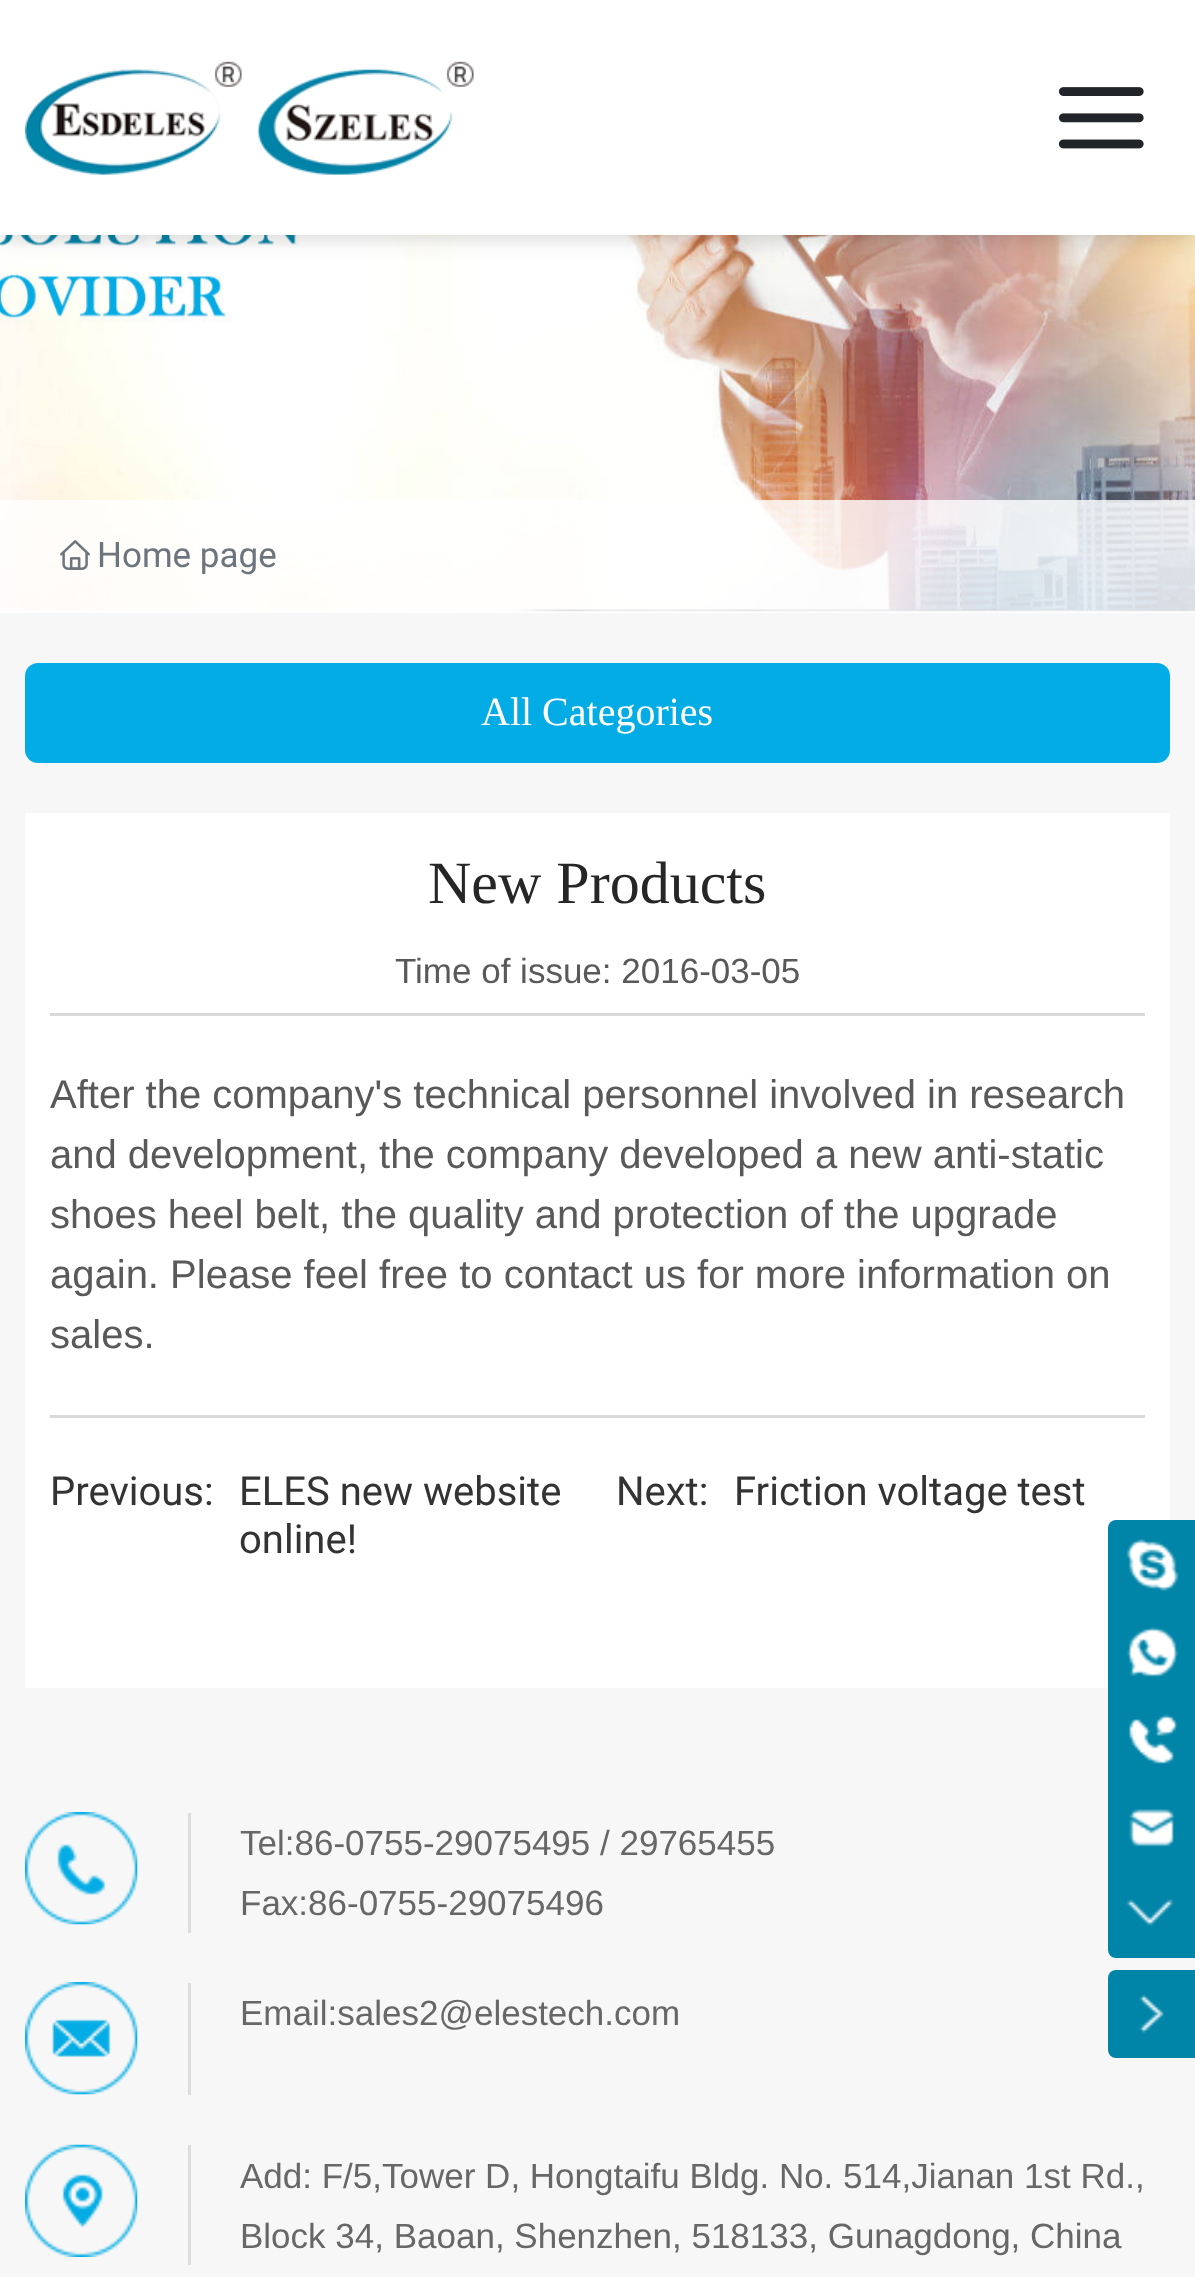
(async () => {
  const canvas = document.querySelector("canvas");
  canvas.width = 1195;
  canvas.height = 2277;
  const ctx = canvas.getContext("2d");
  ctx.miterLimit = 4;
  ctx.fontKerning = "normal";
  async function loadImage(src) {
    const img = new Image();
    img.src = src;
    await img.decode();
    return img;
  }

  ctx.fillStyle = "#ffffff";
  ctx.fillRect(0, 0, 1195, 2277);
  ctx.drawImage(await loadImage("img/3.png"), 0, 235, 1195, 377);
  ctx.fillStyle = "rgba(0, 0, 0, 0.2)";
  ctx.filter = "blur(12.5px)";
  ctx.beginPath();
  ctx.rect(0, 0, 1195, 235);
  ctx.fill();
  ctx.filter = "none";
  ctx.fillStyle = "#ffffff";
  ctx.fillRect(0, 0, 1195, 235);
  ctx.drawImage(await loadImage("img/1.png"), 25, 61, 449, 114);
  ctx.drawImage(await loadImage("img/2.png"), 1058, 87, 86, 62);
  ctx.fillStyle = "rgba(255, 255, 255, 0.8)";
  ctx.fillRect(0, 500, 1195, 112);
  ctx.drawImage(await loadImage("img/4.png"), 60, 540, 30, 30);
  ctx.fillStyle = "#f7f7f7";
  ctx.fillRect(0, 613, 1195, 1664);
  ctx.fillStyle = "#03ace4";
  ctx.beginPath();
  ctx.roundRect(25, 663, 1145, 100, 13);
  ctx.fill();
  for (const [x, y, w, h, color] of [
    [25, 813, 1145, 875, "#ffffff"],
    [50, 1013, 1095, 3, "#d9d9d9"],
    [50, 1415, 1095, 3, "#d9d9d9"],
    [188, 1813, 3, 120, "#dddddd"],
  ]) {
    ctx.fillStyle = color;
    ctx.fillRect(x, y, w, h);
  }
  ctx.drawImage(await loadImage("img/5.png"), 25, 1812, 113, 113);
  ctx.fillRect(188, 1983, 3, 112);
  ctx.drawImage(await loadImage("img/6.png"), 25, 1982, 113, 113);
  ctx.fillRect(188, 2145, 3, 120);
  ctx.drawImage(await loadImage("img/7.png"), 25, 2144, 113, 113);
  ctx.fillStyle = "#0085a8";
  ctx.beginPath();
  ctx.roundRect(1108, 1520, 87, 438, [8, 0, 0, 8]);
  ctx.fill();
  ctx.drawImage(await loadImage("img/8.png"), 1126, 1539, 53, 52);
  ctx.drawImage(await loadImage("img/9.png"), 1126, 1627, 53, 50);
  ctx.drawImage(await loadImage("img/10.png"), 1128, 1714, 50, 50);
  ctx.drawImage(await loadImage("img/11.png"), 1129, 1809, 46, 38);
  ctx.drawImage(await loadImage("img/12.png"), 1126, 1899, 48, 27);
  ctx.beginPath();
  ctx.roundRect(1108, 1970, 87, 88, [8, 0, 0, 8]);
  ctx.fill();
  ctx.drawImage(await loadImage("img/13.png"), 1139, 1994, 25, 40);
  ctx.font = "35px Roboto";
  ctx.fillStyle = "#6c757d";
  ctx.fillText("Home page", 97, 567);
  ctx.font = "40px Liberation Serif";
  ctx.fillStyle = "#ffffff";
  ctx.fillText("All Categories", 481, 725);
  ctx.font = "60px Liberation Serif";
  ctx.fillStyle = "#262626";
  ctx.fillText("New Products", 428, 903);
  ctx.font = "35px Liberation Sans";
  ctx.fillStyle = "#595959";
  ctx.fillText("Time of issue: 2016-03-05", 395, 983);
  ctx.font = "40px Liberation Sans";
  for (const [text, x, y] of [
    ["After the company's technical personnel involved in research", 50, 1108],
    ["and development, the company developed a new anti-static", 50, 1168],
    ["shoes heel belt, the quality and protection of the upgrade", 50, 1228],
    ["again. Please feel free to contact us for more information on", 50, 1288],
    ["sales.", 50, 1348],
  ]) {
    ctx.fillText(text, x, y);
  }
  ctx.font = "40px Roboto";
  ctx.fillStyle = "#333333";
  for (const [text, x, y] of [
    ["Previous:", 50, 1505],
    ["ELES new website", 239, 1505],
    ["online!", 239, 1553],
    ["Next:", 616, 1505],
    ["Friction voltage test", 734, 1505],
  ]) {
    ctx.fillText(text, x, y);
  }
  ctx.font = "35px Liberation Sans";
  ctx.fillStyle = "#686767";
  for (const [text, x, y] of [
    ["Tel:86-0755-29075495 / 29765455", 240, 1855],
    ["Fax:86-0755-29075496", 240, 1915],
    ["Email:sales2@elestech.com", 240, 2025],
    ["Add: F/5,Tower D, Hongtaifu Bldg. No. 514,Jianan 1st Rd.,", 240, 2188],
    ["Block 34, Baoan, Shenzhen, 518133, Gunagdong, China", 240, 2248],
  ]) {
    ctx.fillText(text, x, y);
  }
})();
